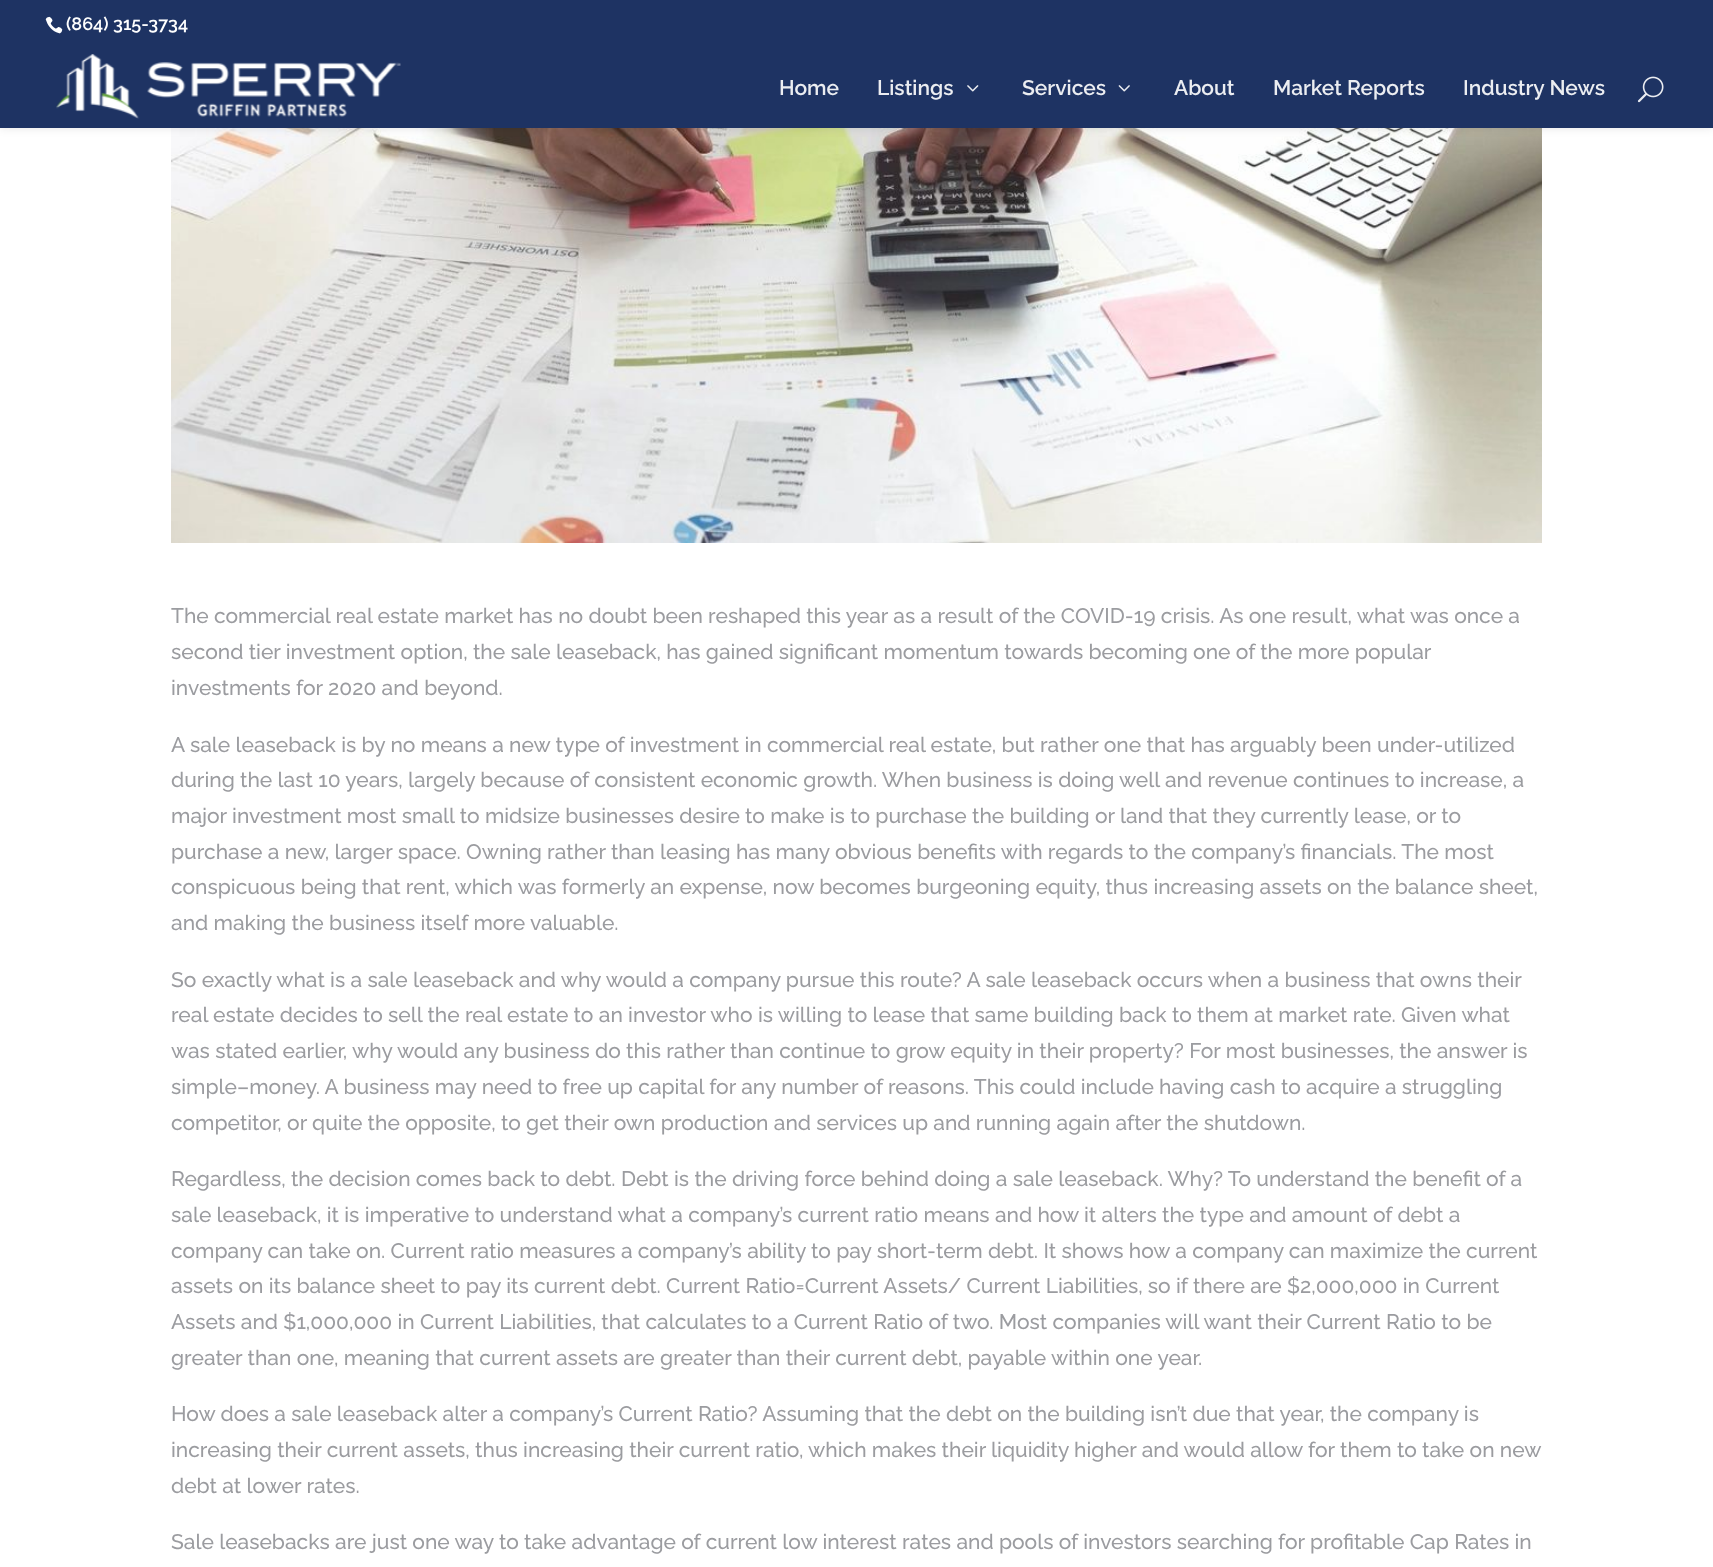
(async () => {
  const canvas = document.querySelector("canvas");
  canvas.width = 1713;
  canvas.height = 1567;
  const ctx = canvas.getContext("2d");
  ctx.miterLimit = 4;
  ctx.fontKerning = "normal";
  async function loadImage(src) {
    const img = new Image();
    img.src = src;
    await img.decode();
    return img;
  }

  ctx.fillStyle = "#ffffff";
  ctx.fillRect(0, 0, 1713, 1567);
  ctx.drawImage(await loadImage("img/6.png"), 171, 128, 1371, 415);
  ctx.fillStyle = "rgba(0, 0, 0, 0.1)";
  ctx.filter = "blur(5px)";
  ctx.beginPath();
  ctx.rect(0, 47, 1713, 81);
  ctx.fill();
  ctx.filter = "none";
  ctx.fillStyle = "#1e3363";
  ctx.fillRect(0, 0, 1713, 128);
  ctx.drawImage(await loadImage("img/1.png"), 45, 16, 18, 18);
  ctx.drawImage(await loadImage("img/2.png"), 56, 54, 345, 65);
  ctx.drawImage(await loadImage("img/3.png"), 967, 85, 12, 7);
  ctx.drawImage(await loadImage("img/4.png"), 1118, 85, 12, 7);
  ctx.drawImage(await loadImage("img/5.png"), 1637, 76, 27, 27);
  ctx.font = "600 18px Raleway";
  ctx.fillStyle = "#ffffff";
  ctx.fillText("(864) 315-3734", 66, 30);
  ctx.font = "600 21px Raleway";
  ctx.fillStyle = "#ebedf1";
  for (const [text, x, y] of [
    ["Home", 779, 95],
    ["Listings", 877, 95],
    ["Services", 1022, 95],
    ["About", 1174, 95],
    ["Market Reports", 1273, 95],
    ["Industry News", 1463, 95],
  ]) {
    ctx.fillText(text, x, y);
  }
  ctx.font = "500 21px Raleway";
  ctx.fillStyle = "#9b9ca0";
  for (const [text, x, y] of [
    ["The commercial real estate market has no doubt been reshaped this year as a result of the COVID-19 crisis. As one result, what was once a", 171, 623],
    ["second tier investment option, the sale leaseback, has gained significant momentum towards becoming one of the more popular", 171, 659],
    ["investments for 2020 and beyond.", 171, 695],
    ["A sale leaseback is by no means a new type of investment in commercial real estate, but rather one that has arguably been under-utilized", 171, 752],
    ["during the last 10 years, largely because of consistent economic growth. When business is doing well and revenue continues to increase, a", 171, 787],
    ["major investment most small to midsize businesses desire to make is to purchase the building or land that they currently lease, or to", 171, 823],
    ["purchase a new, larger space. Owning rather than leasing has many obvious benefits with regards to the company’s financials. The most", 171, 859],
    ["conspicuous being that rent, which was formerly an expense, now becomes burgeoning equity, thus increasing assets on the balance sheet,", 171, 894],
    ["and making the business itself more valuable.", 171, 930],
    ["So exactly what is a sale leaseback and why would a company pursue this route? A sale leaseback occurs when a business that owns their", 171, 987],
    ["real estate decides to sell the real estate to an investor who is willing to lease that same building back to them at market rate. Given what", 171, 1022],
    ["was stated earlier, why would any business do this rather than continue to grow equity in their property? For most businesses, the answer is", 171, 1058],
    ["simple–money. A business may need to free up capital for any number of reasons. This could include having cash to acquire a struggling", 171, 1094],
    ["competitor, or quite the opposite, to get their own production and services up and running again after the shutdown.", 171, 1130],
    ["Regardless, the decision comes back to debt. Debt is the driving force behind doing a sale leaseback. Why? To understand the benefit of a", 171, 1186],
    ["sale leaseback, it is imperative to understand what a company’s current ratio means and how it alters the type and amount of debt a", 171, 1222],
    ["company can take on. Current ratio measures a company’s ability to pay short-term debt. It shows how a company can maximize the current", 171, 1258],
    ["assets on its balance sheet to pay its current debt. Current Ratio=Current Assets/ Current Liabilities, so if there are $2,000,000 in Current", 171, 1293],
    ["Assets and $1,000,000 in Current Liabilities, that calculates to a Current Ratio of two. Most companies will want their Current Ratio to be", 171, 1329],
    ["greater than one, meaning that current assets are greater than their current debt, payable within one year.", 171, 1365],
    ["How does a sale leaseback alter a company’s Current Ratio? Assuming that the debt on the building isn’t due that year, the company is", 171, 1421],
    ["increasing their current assets, thus increasing their current ratio, which makes their liquidity higher and would allow for them to take on new", 171, 1457],
    ["debt at lower rates.", 171, 1493],
    ["Sale leasebacks are just one way to take advantage of current low interest rates and pools of investors searching for profitable Cap Rates in", 171, 1549],
  ]) {
    ctx.fillText(text, x, y);
  }
})();
